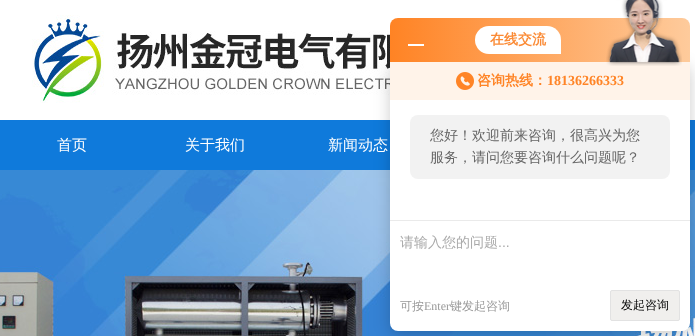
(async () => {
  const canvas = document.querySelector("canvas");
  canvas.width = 695;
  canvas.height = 336;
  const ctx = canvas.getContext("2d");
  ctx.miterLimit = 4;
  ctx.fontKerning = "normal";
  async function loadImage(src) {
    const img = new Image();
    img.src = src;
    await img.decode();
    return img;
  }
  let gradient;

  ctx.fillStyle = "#ffffff";
  ctx.fillRect(0, 0, 695, 336);
  ctx.drawImage(await loadImage("img/1.png"), 32, 15, 448, 88);
  ctx.fillStyle = "#0f7adb";
  ctx.fillRect(0, 120, 695, 50);
  ctx.drawImage(await loadImage("img/4.png"), 0, 170, 695, 166);
  ctx.fillStyle = "rgba(0, 0, 0, 0.2)";
  ctx.filter = "blur(8px)";
  ctx.beginPath();
  ctx.roundRect(390, 66, 300, 269, 8);
  ctx.fill();
  ctx.filter = "none";
  gradient = ctx.createLinearGradient(390, 40, 690, 40);
  gradient.addColorStop(0, "#ff8324");
  gradient.addColorStop(1, "#fecb9c");
  ctx.fillStyle = gradient;
  ctx.beginPath();
  ctx.roundRect(390, 18, 300, 44, [8, 8, 0, 0]);
  ctx.fill();
  ctx.fillStyle = "#ffffff";
  ctx.fillRect(408, 44, 16, 2);
  ctx.beginPath();
  ctx.roundRect(475, 26, 86, 28, [14, 14, 0, 14]);
  ctx.fill();
  ctx.beginPath();
  ctx.roundRect(390, 62, 300, 269, [0, 0, 8, 8]);
  ctx.fill();
  ctx.fillStyle = "#fff3e9";
  ctx.fillRect(390, 62, 300, 38);
  ctx.drawImage(await loadImage("img/2.png"), 606, 0, 76, 66);
  ctx.drawImage(await loadImage("img/3.png"), 456, 72, 18, 18);
  ctx.fillStyle = "#f2f2f2";
  ctx.beginPath();
  ctx.roundRect(410, 115, 260, 64, 8);
  ctx.fill();
  ctx.fillStyle = "#eaeaea";
  ctx.fillRect(390, 220, 300, 1);
  ctx.fillStyle = "#f0efed";
  ctx.beginPath();
  ctx.roundRect(610.5, 290.5, 69, 30, 1.5);
  ctx.fill();
  ctx.strokeStyle = "#e2e2e2";
  ctx.stroke();
  ctx.font = "bold 14px WenQuanYi Zen Hei";
  ctx.fillStyle = "#fb8b36";
  ctx.fillText("在线交流", 490, 44);
  ctx.fillStyle = "#ff8426";
  ctx.fillText("咨询热线：", 477, 85);
  ctx.font = "bold 14px Liberation Serif";
  ctx.fillText("18136266333", 547, 85);
  ctx.font = "500 14px WenQuanYi Zen Hei";
  ctx.fillStyle = "#666666";
  ctx.fillText("您好！欢迎前来咨询，很高兴为您", 430, 140);
  ctx.fillText("服务，请问您要咨询什么问题呢？", 430, 162);
  ctx.fillStyle = "#aaaaaa";
  ctx.fillText("请输入您的问题", 400, 247);
  ctx.font = "14px Liberation Sans";
  ctx.fillText("...", 498, 247);
  ctx.font = "500 12px WenQuanYi Zen Hei";
  ctx.fillStyle = "#999999";
  ctx.fillText("可按", 400, 310);
  ctx.font = "12px Liberation Serif";
  ctx.fillText("Enter", 424, 310);
  ctx.font = "500 12px WenQuanYi Zen Hei";
  ctx.fillText("键发起咨询", 450, 310);
  ctx.fillStyle = "#000000";
  ctx.fillText("发起咨询", 621, 309);
  ctx.font = "500 15px WenQuanYi Zen Hei";
  ctx.fillStyle = "#ffffff";
  for (const [text, x, y] of [
    ["首页", 57, 150],
    ["关于我们", 185, 150],
    ["新闻动态", 328, 150],
  ]) {
    ctx.fillText(text, x, y);
  }
})();
